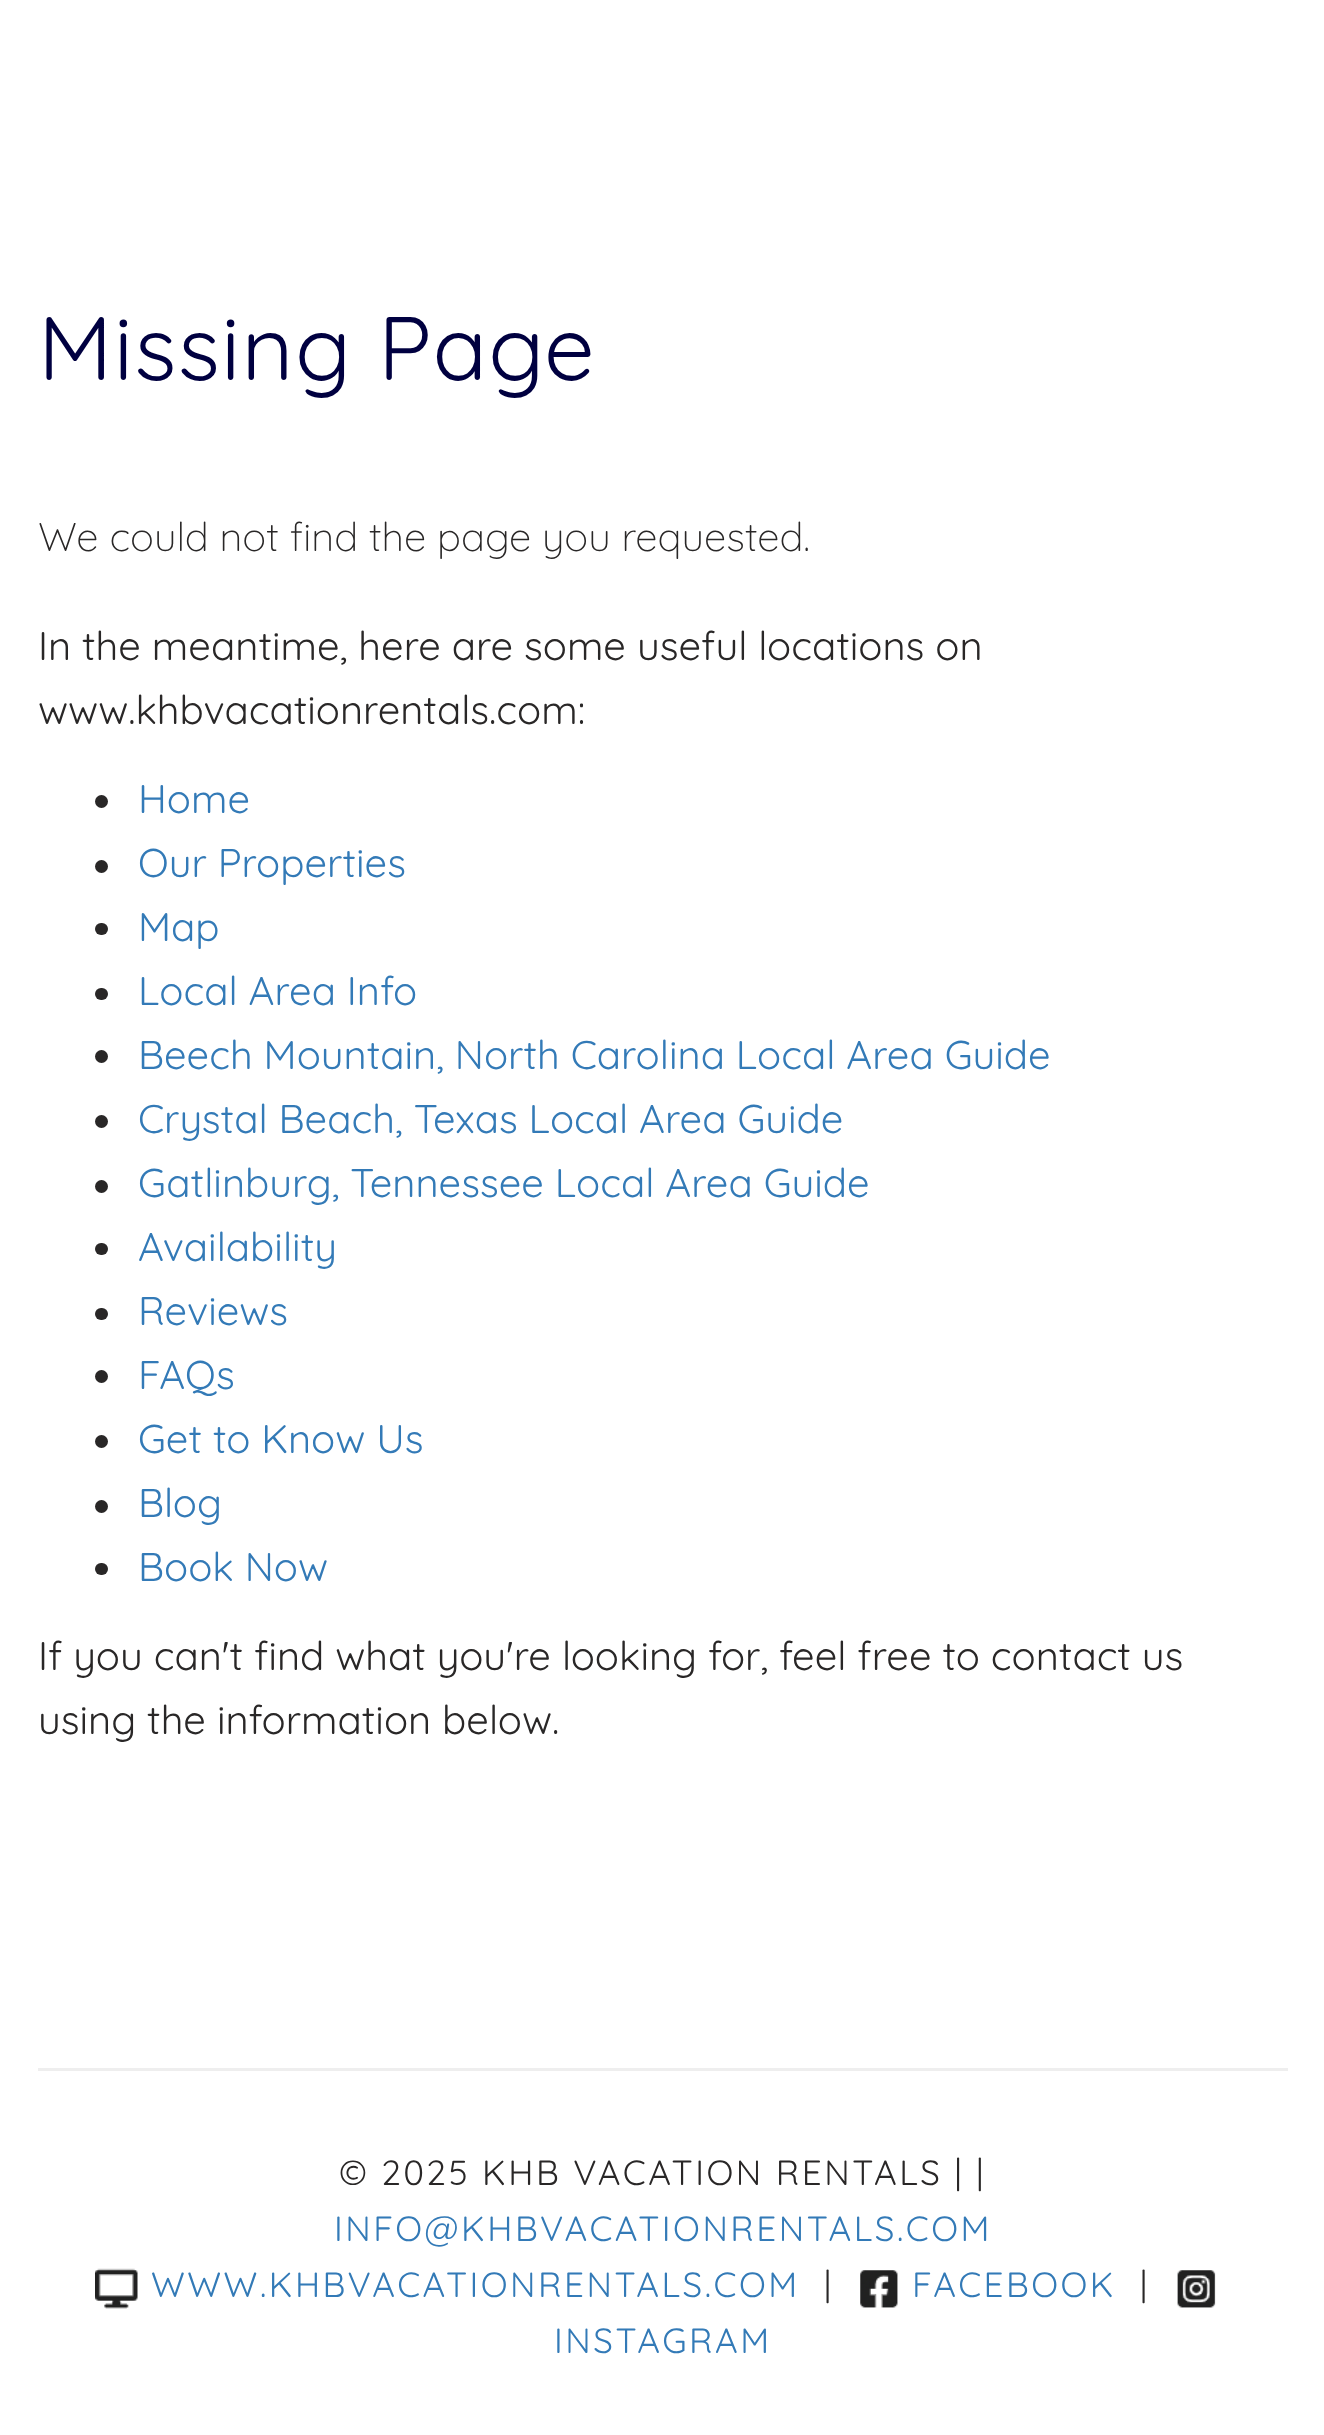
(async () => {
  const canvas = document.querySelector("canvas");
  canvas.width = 1324;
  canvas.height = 2435;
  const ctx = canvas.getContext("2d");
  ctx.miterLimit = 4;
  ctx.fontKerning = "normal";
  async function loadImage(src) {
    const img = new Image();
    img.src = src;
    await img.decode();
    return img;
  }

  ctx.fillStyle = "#ffffff";
  ctx.fillRect(0, 0, 1324, 2435);
  ctx.fillStyle = "#292727";
  ctx.beginPath();
  ctx.arc(101.5, 801.5, 6.5, 0, Math.PI * 2);
  ctx.fill();
  ctx.beginPath();
  ctx.arc(101.5, 866.5, 6.5, 0, Math.PI * 2);
  ctx.fill();
  ctx.beginPath();
  ctx.roundRect(95, 923, 13, 12, 6);
  ctx.fill();
  ctx.beginPath();
  ctx.roundRect(95, 988, 13, 12, 6);
  ctx.fill();
  ctx.beginPath();
  ctx.arc(101.5, 1056.5, 6.5, 0, Math.PI * 2);
  ctx.fill();
  ctx.beginPath();
  ctx.arc(101.5, 1121.5, 6.5, 0, Math.PI * 2);
  ctx.fill();
  ctx.beginPath();
  ctx.arc(101.5, 1186.5, 6.5, 0, Math.PI * 2);
  ctx.fill();
  ctx.beginPath();
  ctx.roundRect(95, 1243, 13, 12, 6);
  ctx.fill();
  ctx.beginPath();
  ctx.roundRect(95, 1308, 13, 12, 6);
  ctx.fill();
  ctx.beginPath();
  ctx.arc(101.5, 1376.5, 6.5, 0, Math.PI * 2);
  ctx.fill();
  ctx.beginPath();
  ctx.arc(101.5, 1441.5, 6.5, 0, Math.PI * 2);
  ctx.fill();
  ctx.beginPath();
  ctx.arc(101.5, 1506.5, 6.5, 0, Math.PI * 2);
  ctx.fill();
  ctx.beginPath();
  ctx.roundRect(95, 1563, 13, 12, 6);
  ctx.fill();
  ctx.fillStyle = "#eeeeee";
  ctx.fillRect(38, 2068, 1250, 3);
  ctx.drawImage(await loadImage("img/1.png"), 95, 2268, 43, 41);
  ctx.drawImage(await loadImage("img/2.png"), 860, 2270, 38, 38);
  ctx.drawImage(await loadImage("img/3.png"), 1177, 2270, 39, 38);
  ctx.letterSpacing = "1.25px";
  ctx.font = "90px Quicksand";
  ctx.fillStyle = "#000040";
  ctx.fillText("Missing Page", 38, 380);
  ctx.letterSpacing = "0px";
  ctx.font = "300 40px Quicksand";
  ctx.fillStyle = "#292727";
  ctx.fillText("We could not find the page you requested.", 38, 551);
  ctx.font = "40px Quicksand";
  ctx.fillText("In the meantime, here are some useful locations on", 38, 660);
  ctx.fillText("www.khbvacationrentals.com:", 38, 724);
  ctx.fillStyle = "#337ab7";
  for (const [text, x, y] of [
    ["Home", 138, 813],
    ["Our Properties", 138, 877],
    ["Map", 138, 941],
    ["Local Area Info", 138, 1005],
    ["Beech Mountain, North Carolina Local Area Guide", 138, 1069],
    ["Crystal Beach, Texas Local Area Guide", 138, 1133],
    ["Gatlinburg, Tennessee Local Area Guide", 138, 1197],
    ["Availability", 138, 1261],
    ["Reviews", 138, 1325],
    ["FAQs", 138, 1389],
    ["Get to Know Us", 138, 1453],
    ["Blog", 138, 1517],
    ["Book Now", 138, 1581],
  ]) {
    ctx.fillText(text, x, y);
  }
  ctx.fillStyle = "#292727";
  ctx.fillText("If you can't find what you're looking for, feel free to contact us", 38, 1670);
  ctx.fillText("using the information below.", 38, 1734);
  ctx.letterSpacing = "2.5px";
  ctx.font = "35px Quicksand";
  ctx.fillText("© 2025 KHB VACATION RENTALS | |", 339, 2185);
  ctx.fillStyle = "#337ab7";
  ctx.fillText("INFO@KHBVACATIONRENTALS.COM", 334, 2241);
  ctx.fillText("WWW.KHBVACATIONRENTALS.COM", 151, 2297);
  ctx.fillStyle = "#292727";
  ctx.fillText("|", 824, 2297);
  ctx.fillStyle = "#337ab7";
  ctx.fillText("FACEBOOK", 912, 2297);
  ctx.fillStyle = "#292727";
  ctx.fillText("|", 1140, 2297);
  ctx.fillStyle = "#337ab7";
  ctx.fillText("INSTAGRAM", 554, 2353);
})();
